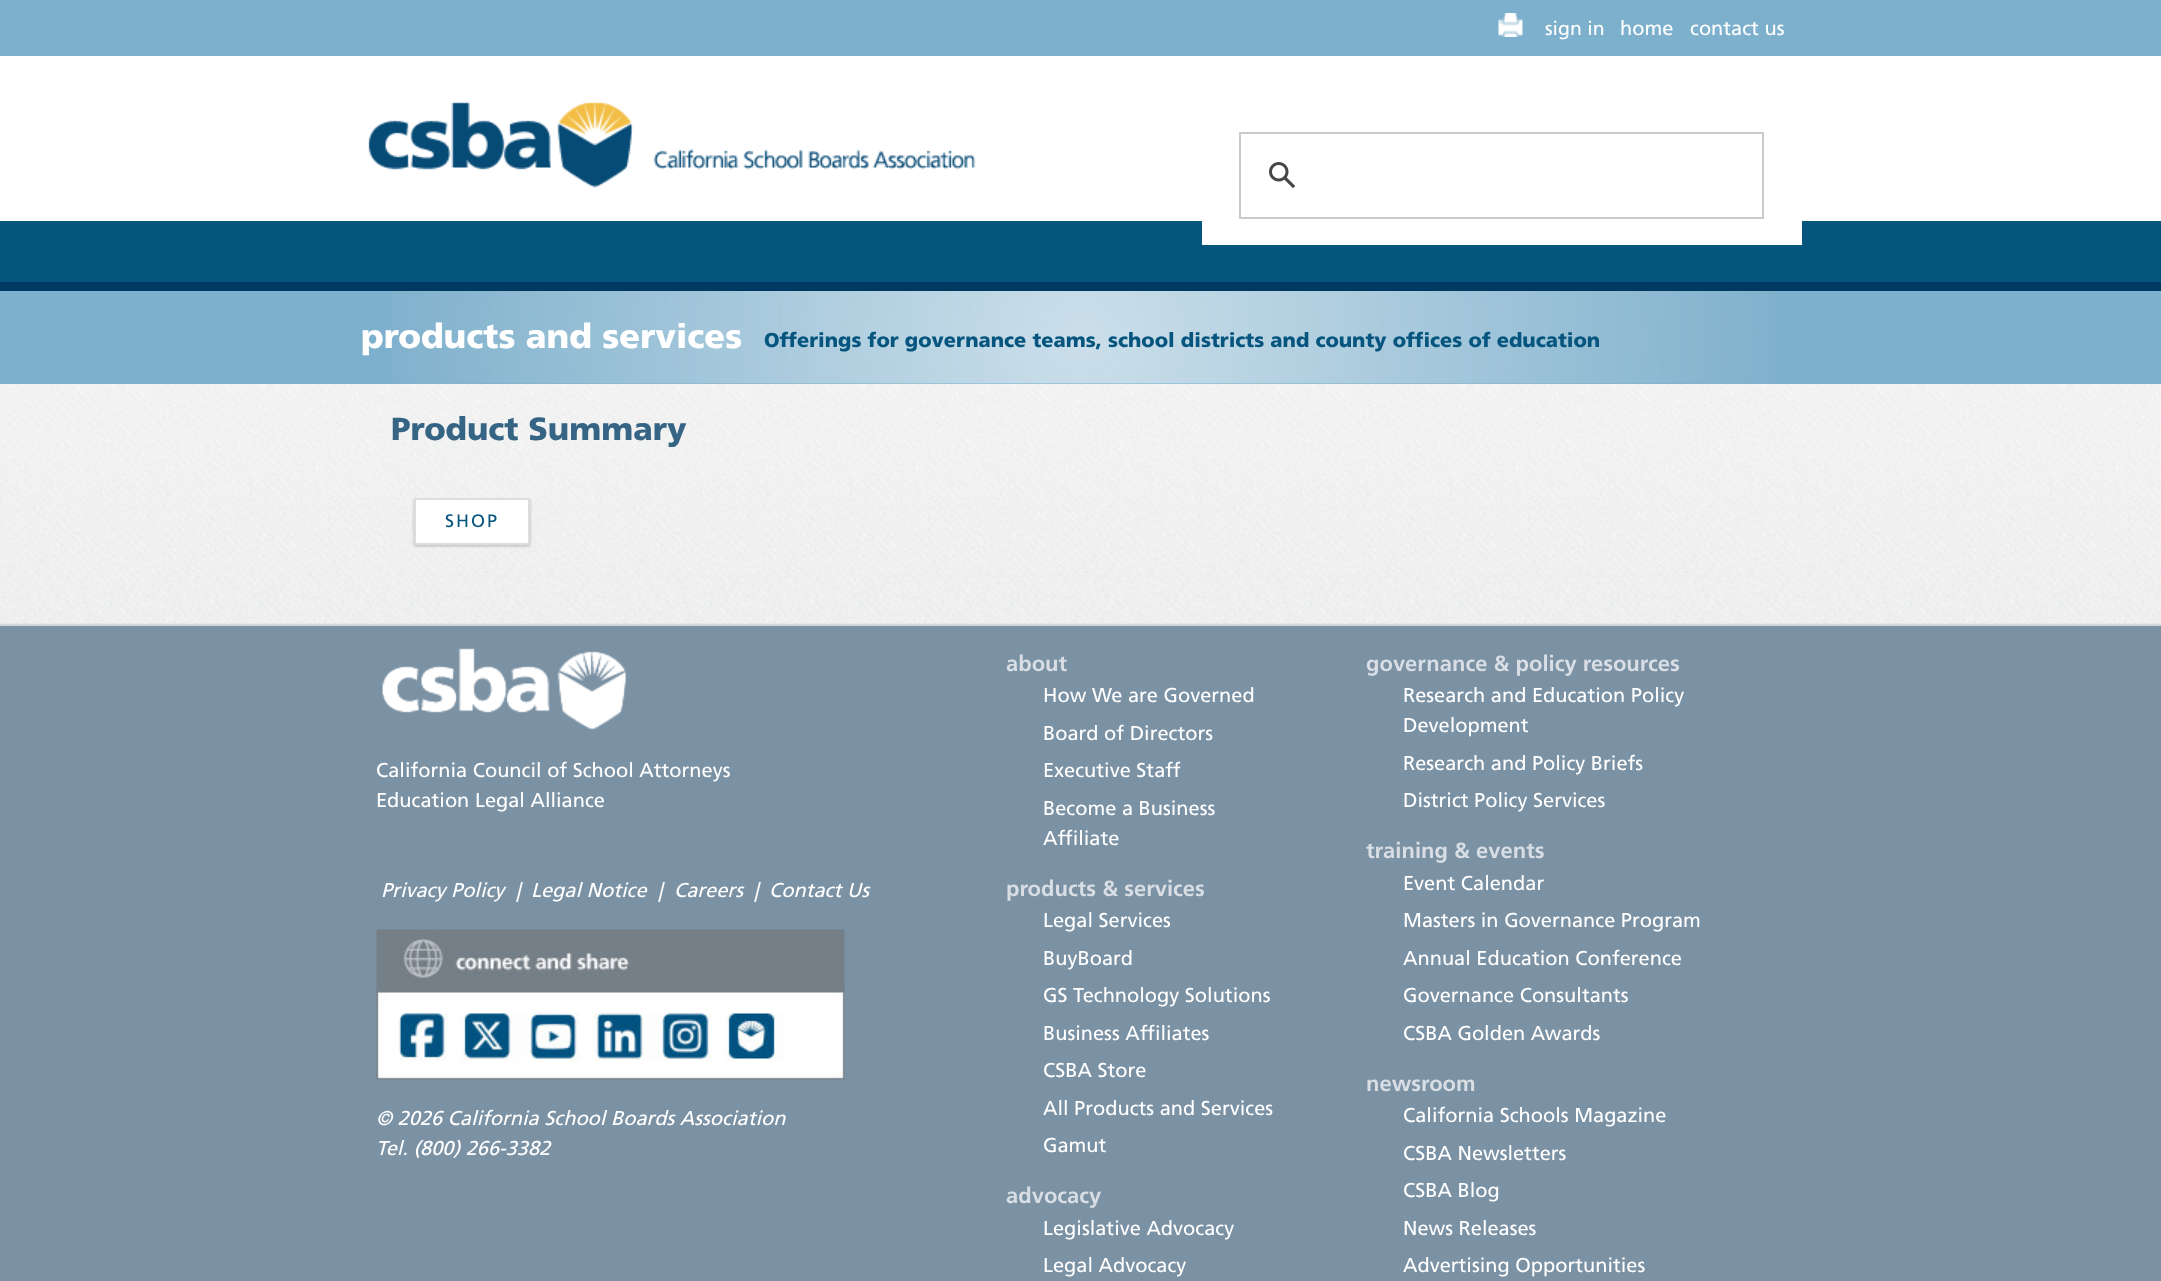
(async () => {
  const canvas = document.querySelector("canvas");
  canvas.width = 2161;
  canvas.height = 1281;
  const ctx = canvas.getContext("2d");
  ctx.miterLimit = 4;
  ctx.fontKerning = "normal";
  async function loadImage(src) {
    const img = new Image();
    img.src = src;
    await img.decode();
    return img;
  }

  ctx.fillStyle = "#e2e2e2";
  ctx.fillRect(0, 0, 2161, 1281);
  ctx.drawImage(await loadImage("img/1.png"), 0, 384, 2161, 240);
  ctx.fillStyle = "#7db0cc";
  ctx.fillRect(0, 0, 2161, 56);
  ctx.drawImage(await loadImage("img/2.png"), 1498, 13, 25, 24);
  ctx.fillStyle = "#ffffff";
  ctx.fillRect(0, 56, 2161, 165);
  ctx.drawImage(await loadImage("img/3.png"), 368, 101, 608, 87);
  ctx.fillStyle = "#06557e";
  ctx.fillRect(0, 221, 2161, 61);
  ctx.fillStyle = "#ffffff";
  ctx.fillRect(1202, 221, 600, 24);
  ctx.strokeStyle = "#c8cad0";
  ctx.lineWidth = 2;
  ctx.strokeRect(1240, 133, 523, 85);
  ctx.drawImage(await loadImage("img/4.png"), 1269, 162, 27, 27);
  ctx.fillStyle = "#003a63";
  ctx.fillRect(0, 282, 2161, 9);
  ctx.drawImage(await loadImage("img/5.png"), 0, 384, 2161, 239);
  ctx.fillStyle = "#7db0cd";
  ctx.fillRect(0, 291, 2161, 93);
  ctx.drawImage(await loadImage("img/6.png"), 391, 291, 1384, 93);
  ctx.fillStyle = "rgba(0, 0, 0, 0.25)";
  ctx.filter = "blur(1.5px)";
  ctx.beginPath();
  ctx.rect(414, 500, 116, 46);
  ctx.fill();
  ctx.filter = "none";
  ctx.fillStyle = "#ffffff";
  ctx.beginPath();
  ctx.rect(415, 499, 114, 45);
  ctx.fill();
  ctx.strokeStyle = "#dddddd";
  ctx.stroke();
  for (const [x, y, w, h, color] of [
    [414, 575, 1388, 2, "#eeeeee"],
    [0, 626, 2161, 655, "#7b91a4"],
    [0, 624, 2161, 2, "#d7d7d7"],
  ]) {
    ctx.fillStyle = color;
    ctx.fillRect(x, y, w, h);
  }
  ctx.drawImage(await loadImage("img/7.png"), 382, 647, 245, 84);
  ctx.drawImage(await loadImage("img/8.png"), 376, 929, 469, 151);
  ctx.font = "19.5px 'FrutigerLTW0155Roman'";
  ctx.fillStyle = "#ffffff";
  ctx.fillText("sign in", 1545, 35);
  ctx.font = "20px 'FrutigerLTW0155Roman'";
  ctx.fillText("home", 1620, 35);
  ctx.fillText("contact us", 1690, 35);
  ctx.font = "900 34px 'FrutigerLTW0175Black'";
  ctx.fillText("products and services", 361, 348);
  ctx.font = "900 20px 'FrutigerLTW0175Black'";
  ctx.fillStyle = "#06557e";
  ctx.fillText("Offerings for governance teams, school districts and county offices of education", 764, 347);
  ctx.font = "900 32px 'FrutigerLTW0175Black'";
  ctx.fillStyle = "#366484";
  ctx.fillText("Product Summary", 391, 440);
  ctx.letterSpacing = "2px";
  ctx.font = "18px 'FrutigerLTW0155Roman'";
  ctx.fillStyle = "#06557e";
  ctx.fillText("SHOP", 445, 527);
  ctx.letterSpacing = "0px";
  ctx.font = "20px 'FrutigerLTW0155Roman'";
  ctx.fillStyle = "#ffffff";
  ctx.fillText("California Council of School Attorneys", 376, 777);
  ctx.fillText("Education Legal Alliance", 376, 807);
  ctx.font = "italic 20px 'FrutigerLTW0155Roman'";
  for (const [text, x, y] of [
    ["Privacy Policy", 381, 897],
    ["|", 516, 897],
    ["Legal Notice", 531, 897],
    ["|", 658, 897],
    ["Careers", 674, 897],
    ["|", 754, 897],
    ["Contact Us", 769, 897],
    ["© 2026 California School Boards Association", 376, 1125],
    ["Tel. (800) 266-3382", 376, 1155],
  ]) {
    ctx.fillText(text, x, y);
  }
  ctx.font = "bold 22px 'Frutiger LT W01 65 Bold'";
  ctx.fillStyle = "#d8dee4";
  ctx.fillText("about", 1006, 671);
  ctx.font = "20px 'FrutigerLTW0155Roman'";
  ctx.fillStyle = "#ffffff";
  for (const [text, x, y] of [
    ["How We are Governed", 1043, 702],
    ["Board of Directors", 1043, 740],
    ["Executive Staff", 1043, 777],
    ["Become a Business", 1043, 815],
    ["Affiliate", 1043, 845],
  ]) {
    ctx.fillText(text, x, y);
  }
  ctx.font = "bold 22px 'Frutiger LT W01 65 Bold'";
  ctx.fillStyle = "#d8dee4";
  ctx.fillText("products & services", 1006, 896);
  ctx.font = "20px 'FrutigerLTW0155Roman'";
  ctx.fillStyle = "#ffffff";
  for (const [text, x, y] of [
    ["Legal Services", 1043, 927],
    ["BuyBoard", 1043, 965],
    ["GS Technology Solutions", 1043, 1002],
    ["Business Affiliates", 1043, 1040],
    ["CSBA Store", 1043, 1077],
    ["All Products and Services", 1043, 1115],
    ["Gamut", 1043, 1152],
  ]) {
    ctx.fillText(text, x, y);
  }
  ctx.font = "bold 22px 'Frutiger LT W01 65 Bold'";
  ctx.fillStyle = "#d8dee4";
  ctx.fillText("advocacy", 1006, 1203);
  ctx.font = "20px 'FrutigerLTW0155Roman'";
  ctx.fillStyle = "#ffffff";
  ctx.fillText("Legislative Advocacy", 1043, 1235);
  ctx.fillText("Legal Advocacy", 1043, 1272);
  ctx.font = "bold 22px 'Frutiger LT W01 65 Bold'";
  ctx.fillStyle = "#d8dee4";
  ctx.fillText("governance & policy resources", 1366, 671);
  ctx.font = "20px 'FrutigerLTW0155Roman'";
  ctx.fillStyle = "#ffffff";
  for (const [text, x, y] of [
    ["Research and Education Policy", 1403, 702],
    ["Development", 1403, 732],
    ["Research and Policy Briefs", 1403, 770],
    ["District Policy Services", 1403, 807],
  ]) {
    ctx.fillText(text, x, y);
  }
  ctx.font = "bold 22px 'Frutiger LT W01 65 Bold'";
  ctx.fillStyle = "#d8dee4";
  ctx.fillText("training & events", 1366, 858);
  ctx.font = "20px 'FrutigerLTW0155Roman'";
  ctx.fillStyle = "#ffffff";
  for (const [text, x, y] of [
    ["Event Calendar", 1403, 890],
    ["Masters in Governance Program", 1403, 927],
    ["Annual Education Conference", 1403, 965],
    ["Governance Consultants", 1403, 1002],
    ["CSBA Golden Awards", 1403, 1040],
  ]) {
    ctx.fillText(text, x, y);
  }
  ctx.font = "bold 22px 'Frutiger LT W01 65 Bold'";
  ctx.fillStyle = "#d8dee4";
  ctx.fillText("newsroom", 1366, 1091);
  ctx.font = "20px 'FrutigerLTW0155Roman'";
  ctx.fillStyle = "#ffffff";
  for (const [text, x, y] of [
    ["California Schools Magazine", 1403, 1122],
    ["CSBA Newsletters", 1403, 1160],
    ["CSBA Blog", 1403, 1197],
    ["News Releases", 1403, 1235],
    ["Advertising Opportunities", 1403, 1272],
  ]) {
    ctx.fillText(text, x, y);
  }
})();
